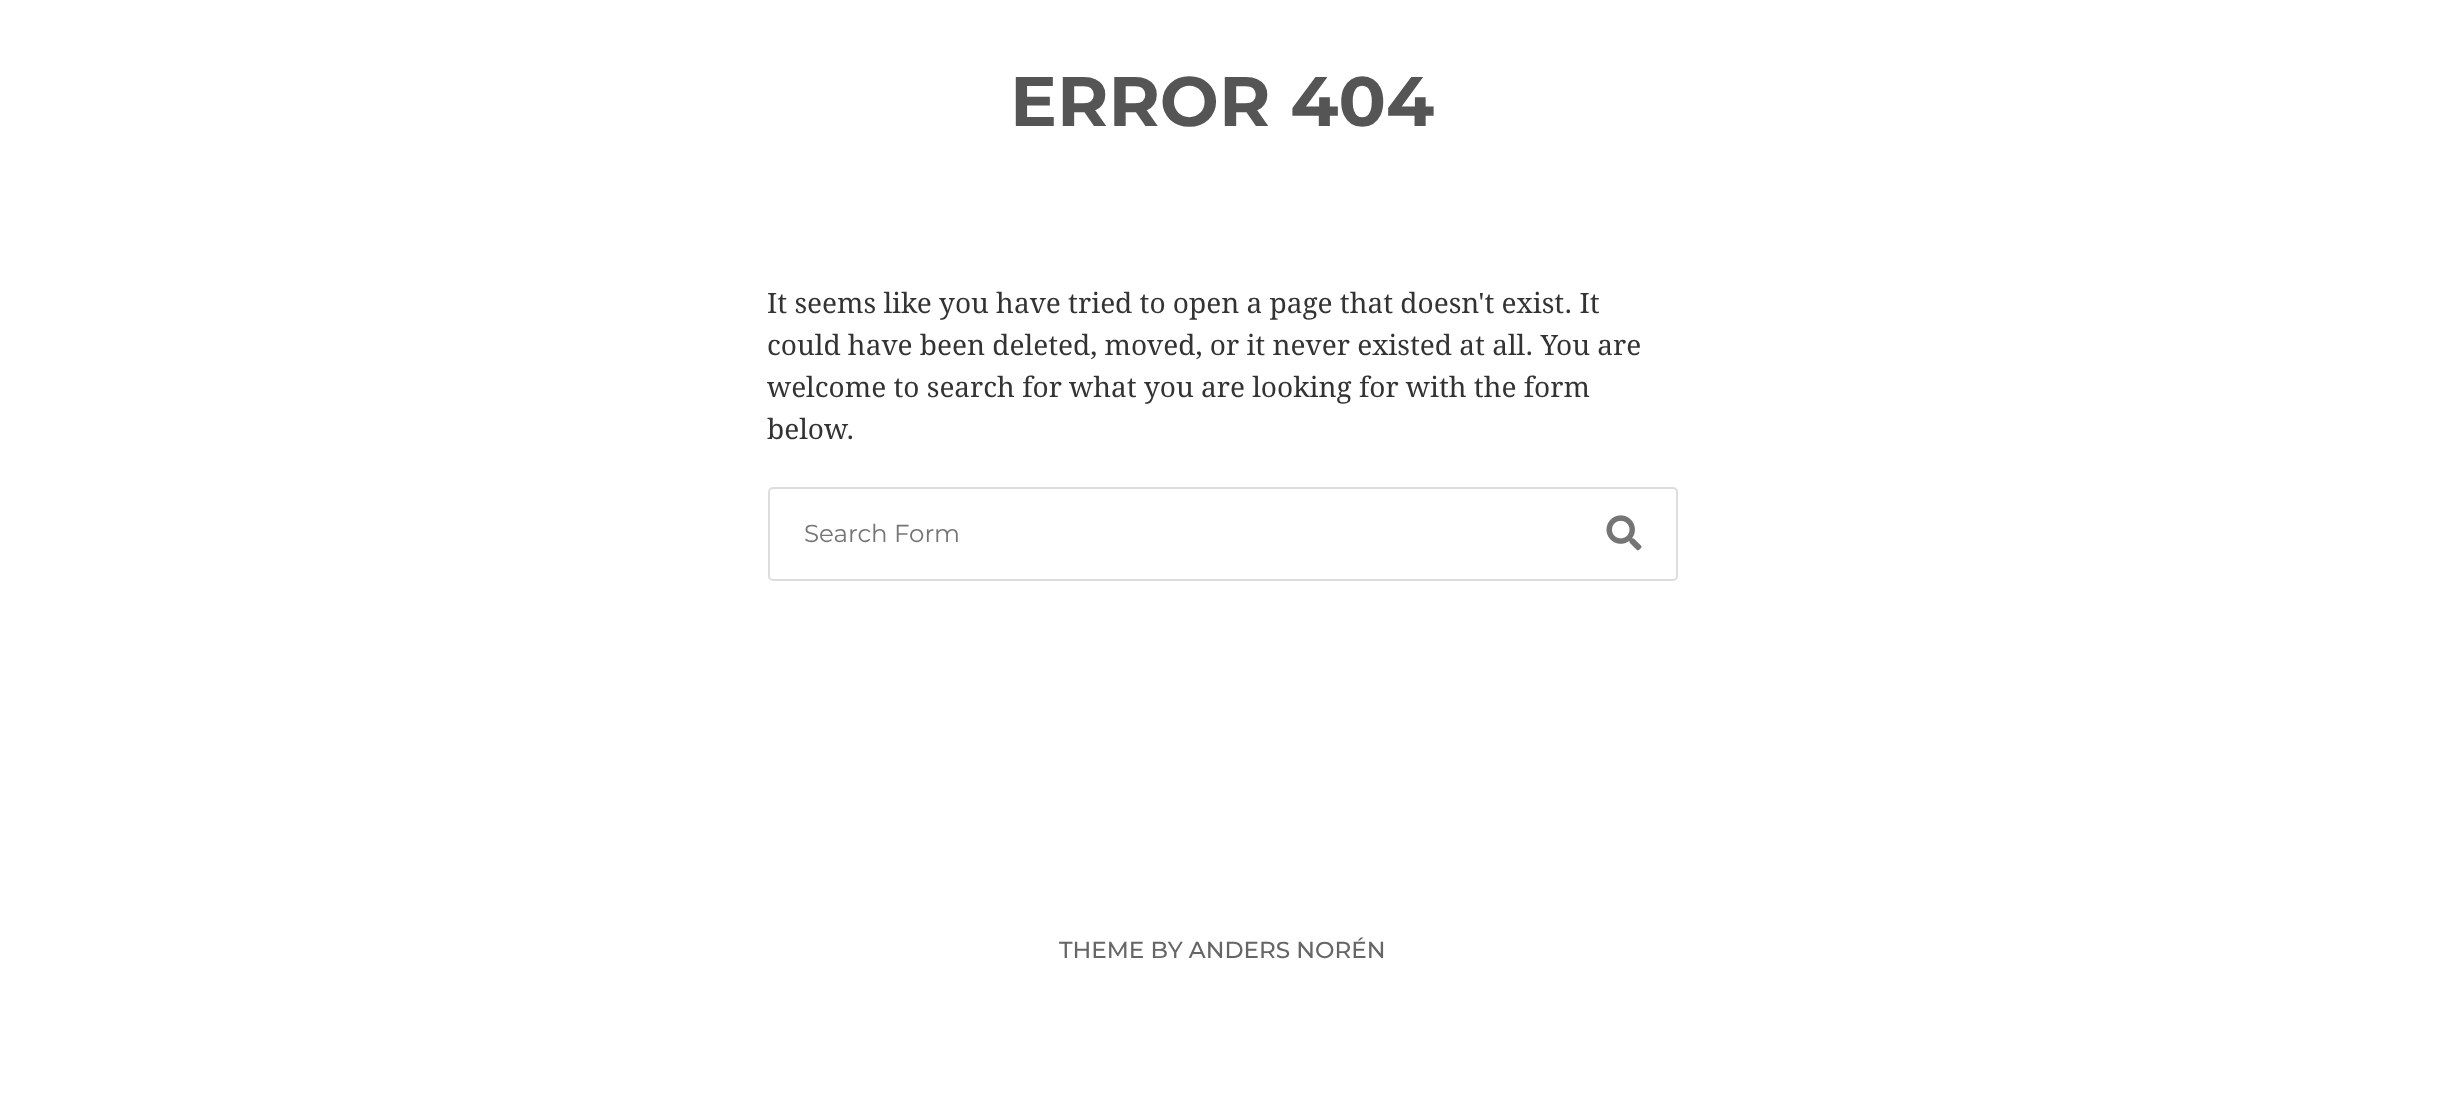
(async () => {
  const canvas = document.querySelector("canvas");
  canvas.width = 2444;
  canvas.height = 1097;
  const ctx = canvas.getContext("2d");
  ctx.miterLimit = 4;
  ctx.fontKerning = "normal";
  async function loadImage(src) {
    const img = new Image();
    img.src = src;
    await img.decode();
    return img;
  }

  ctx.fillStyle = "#ffffff";
  ctx.fillRect(0, 0, 2444, 1097);
  ctx.beginPath();
  ctx.roundRect(769, 488, 908, 92, 4);
  ctx.strokeStyle = "#dddddd";
  ctx.lineWidth = 2;
  ctx.stroke();
  ctx.drawImage(await loadImage("img/1.png"), 1606, 515, 36, 36);
  ctx.font = "100 70px Montserrat";
  ctx.fillStyle = "#555555";
  ctx.fillText("ERROR 404", 1010, 126);
  ctx.font = "28px Droid Serif";
  ctx.fillStyle = "#333333";
  for (const [text, x, y] of [
    ["It seems like you have tried to open a page that doesn't exist. It", 767, 313],
    ["could have been deleted, moved, or it never existed at all. You are", 767, 355],
    ["welcome to search for what you are looking for with the form", 767, 397],
    ["below.", 767, 439],
  ]) {
    ctx.fillText(text, x, y);
  }
  ctx.font = "100 24.5px 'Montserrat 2'";
  ctx.fillStyle = "#757575";
  ctx.fillText("Search Form", 804, 542);
  ctx.font = "100 23.1px 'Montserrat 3'";
  ctx.fillStyle = "#666666";
  ctx.fillText("THEME BY ANDERS NORÉN", 1059, 958);
})();
